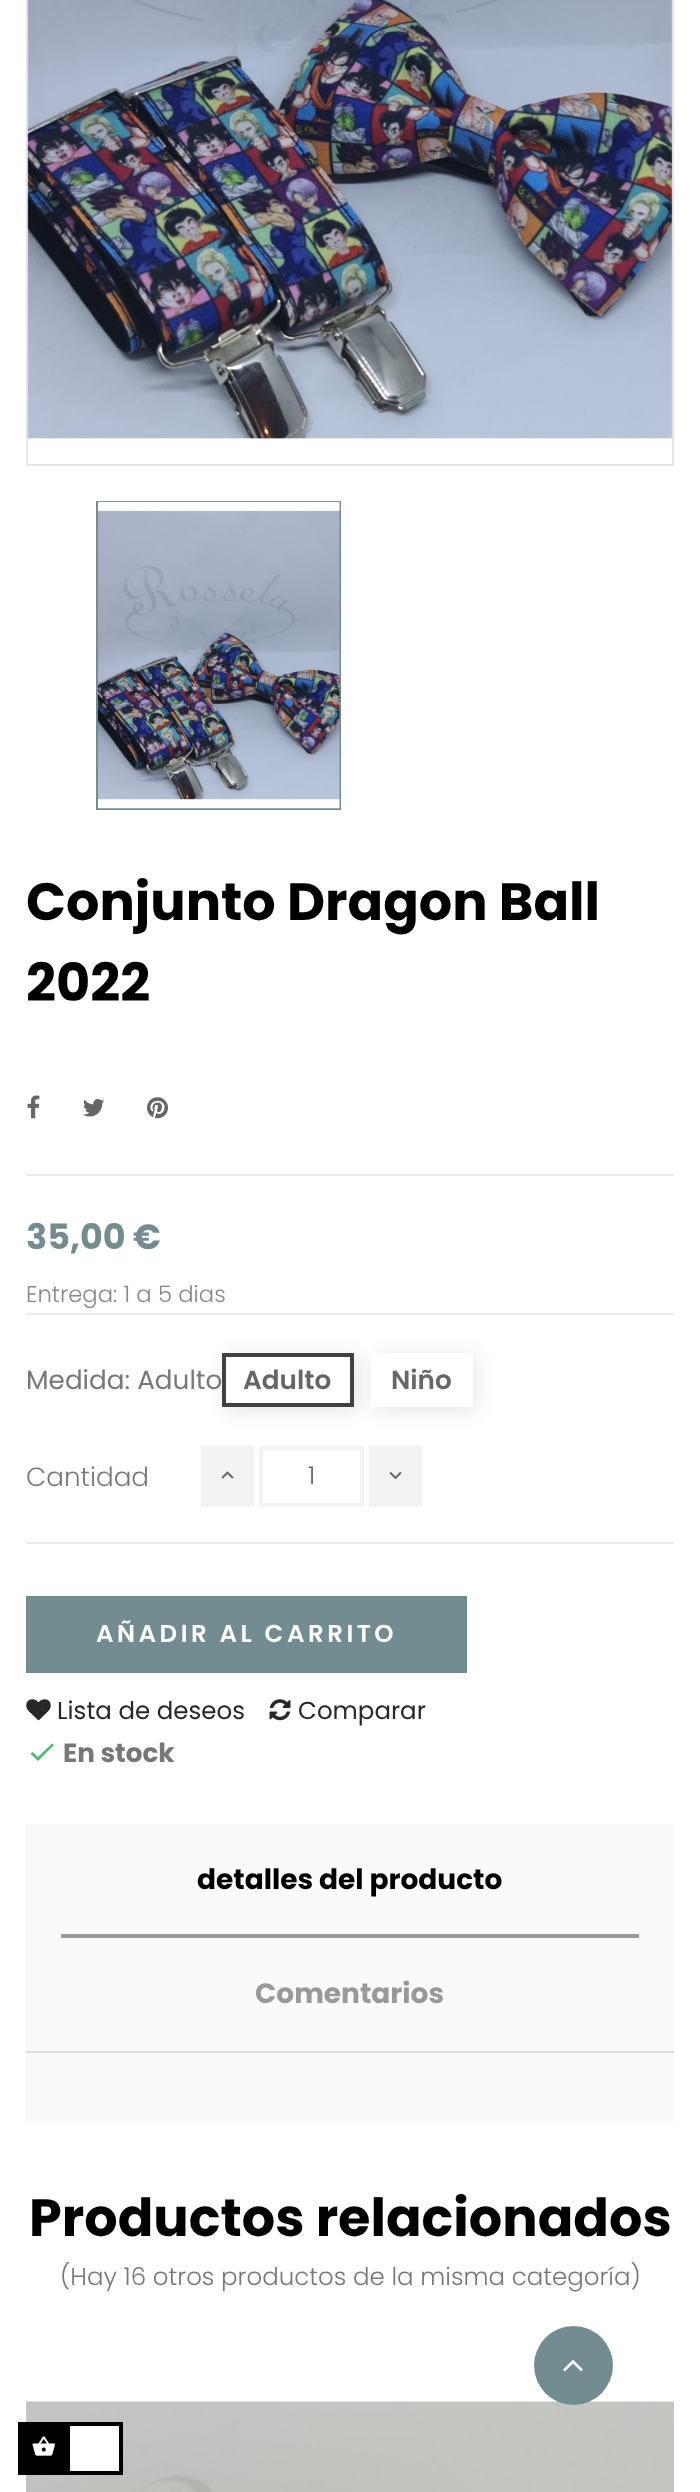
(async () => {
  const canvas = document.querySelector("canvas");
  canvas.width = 700;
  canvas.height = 2492;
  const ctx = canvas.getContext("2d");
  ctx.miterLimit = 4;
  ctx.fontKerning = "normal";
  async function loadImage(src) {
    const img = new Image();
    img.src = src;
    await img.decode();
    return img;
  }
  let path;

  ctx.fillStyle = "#ffffff";
  ctx.fillRect(0, 0, 700, 2492);
  ctx.strokeStyle = "#e5e5e5";
  ctx.lineWidth = 2;
  ctx.strokeRect(27, -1, 646, 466);
  ctx.drawImage(await loadImage("img/1.png"), 27, 0, 646, 439);
  ctx.strokeStyle = "#738c92";
  ctx.strokeRect(97, 502, 243, 307);
  ctx.drawImage(await loadImage("img/2.png"), 97, 501, 243, 308);
  ctx.fillStyle = "#eaeaea";
  ctx.fillRect(26, 1174, 648, 2);
  ctx.drawImage(await loadImage("img/3.png"), 27, 1095, 13, 24);
  ctx.drawImage(await loadImage("img/4.png"), 83, 1099, 22, 18);
  ctx.drawImage(await loadImage("img/5.png"), 147, 1097, 21, 22);
  ctx.fillRect(26, 1313, 648, 2);
  ctx.fillStyle = "rgba(0, 0, 0, 0.1)";
  ctx.filter = "blur(9.5px)";
  ctx.beginPath();
  ctx.rect(226, 1356, 131, 55);
  ctx.fill();
  ctx.filter = "none";
  ctx.fillStyle = "#ffffff";
  ctx.beginPath();
  ctx.rect(224, 1355, 128, 50);
  ctx.fill();
  ctx.strokeStyle = "#414141";
  ctx.lineWidth = 4;
  ctx.stroke();
  ctx.fillStyle = "rgba(0, 0, 0, 0.1)";
  ctx.filter = "blur(9.5px)";
  ctx.beginPath();
  ctx.rect(375, 1356, 101, 55);
  ctx.fill();
  ctx.filter = "none";
  for (const [x, y, w, h, color] of [
    [371, 1353, 102, 54, "#ffffff"],
    [26, 1542, 648, 2, "#eaeaea"],
    [201, 1446, 53, 61, "#f3f3f3"],
  ]) {
    ctx.fillStyle = color;
    ctx.fillRect(x, y, w, h);
  }
  ctx.drawImage(await loadImage("img/6.png"), 221, 1471, 13, 8);
  ctx.fillRect(369, 1446, 53, 61);
  ctx.drawImage(await loadImage("img/7.png"), 389, 1471, 13, 9);
  ctx.strokeStyle = "#f3f3f3";
  ctx.strokeRect(261, 1448, 101, 57);
  ctx.fillStyle = "#738c92";
  ctx.fillRect(26, 1596, 441, 77);
  ctx.drawImage(await loadImage("img/8.png"), 26, 1699, 25, 22);
  ctx.drawImage(await loadImage("img/9.png"), 269, 1699, 22, 22);
  ctx.fillStyle = "#4cbb6c";
  path = new Path2D("M38 1757L52 1743.5L54 1745L38 1761L30.5 1753.5L32.5 1752Z");
  ctx.fill(path);
  for (const [x, y, w, h, color] of [
    [26, 1824, 648, 299, "#fafafa"],
    [26, 2051, 648, 2, "#dddddd"],
    [61, 1934, 578, 4, "#999999"],
  ]) {
    ctx.fillStyle = color;
    ctx.fillRect(x, y, w, h);
  }
  ctx.drawImage(await loadImage("img/10.png"), 26, 2401, 648, 91);
  ctx.fillStyle = "#738c92";
  ctx.beginPath();
  ctx.arc(573.5, 2365.5, 39.5, 0, Math.PI * 2);
  ctx.fill();
  ctx.drawImage(await loadImage("img/11.png"), 563, 2360, 20, 12);
  ctx.fillStyle = "#000000";
  ctx.fillRect(18, 2422, 105, 53);
  ctx.drawImage(await loadImage("img/12.png"), 32, 2436, 23, 20);
  ctx.fillStyle = "#ffffff";
  ctx.fillRect(70, 2426, 49, 45);
  ctx.font = "bold 52.5px Poppins";
  ctx.fillStyle = "#000000";
  ctx.fillText("Conjunto Dragon Ball", 26, 920);
  ctx.fillText("2022", 26, 1001);
  ctx.font = "bold 35px Poppins";
  ctx.fillStyle = "#738c92";
  ctx.fillText("35,00 €", 26, 1249);
  ctx.font = "300 22.75px Poppins";
  ctx.fillStyle = "#878787";
  ctx.fillText("Entrega: 1 a 5 dias", 26, 1302);
  ctx.font = "26.25px Poppins";
  ctx.fillStyle = "#777777";
  ctx.fillText("Medida: Adulto", 26, 1389);
  ctx.font = "600 26.25px Poppins";
  ctx.fillStyle = "#666666";
  ctx.fillText("Adulto", 243, 1389);
  ctx.fillText("Niño", 391, 1389);
  ctx.font = "300 26.25px Poppins";
  ctx.fillStyle = "#777777";
  ctx.fillText("Cantidad", 26, 1486);
  ctx.font = "300 24.5px Poppins";
  ctx.fillStyle = "#666666";
  ctx.fillText("1", 308, 1484);
  ctx.letterSpacing = "3.5px";
  ctx.font = "600 24.5px Poppins";
  ctx.fillStyle = "#ffffff";
  ctx.fillText("AÑADIR AL CARRITO", 96, 1642);
  ctx.letterSpacing = "0px";
  ctx.font = "24.5px Poppins";
  ctx.fillStyle = "#272727";
  ctx.fillText("Lista de deseos", 57, 1719);
  ctx.fillText("Comparar", 298, 1719);
  ctx.font = "bold 26.25px Poppins";
  ctx.fillStyle = "#777777";
  ctx.fillText("En stock", 63, 1762);
  ctx.font = "bold 28px Poppins";
  ctx.fillStyle = "#000000";
  ctx.fillText("detalles del producto", 197, 1889);
  ctx.fillStyle = "#999999";
  ctx.fillText("Comentarios", 255, 2003);
  ctx.font = "bold 52.5px Poppins";
  ctx.fillStyle = "#000000";
  ctx.fillText("Productos relacionados", 29, 2236);
  ctx.font = "300 24.5px Poppins";
  ctx.fillStyle = "#777777";
  ctx.fillText("(Hay 16 otros productos de la misma categoría)", 60, 2285);
})();
